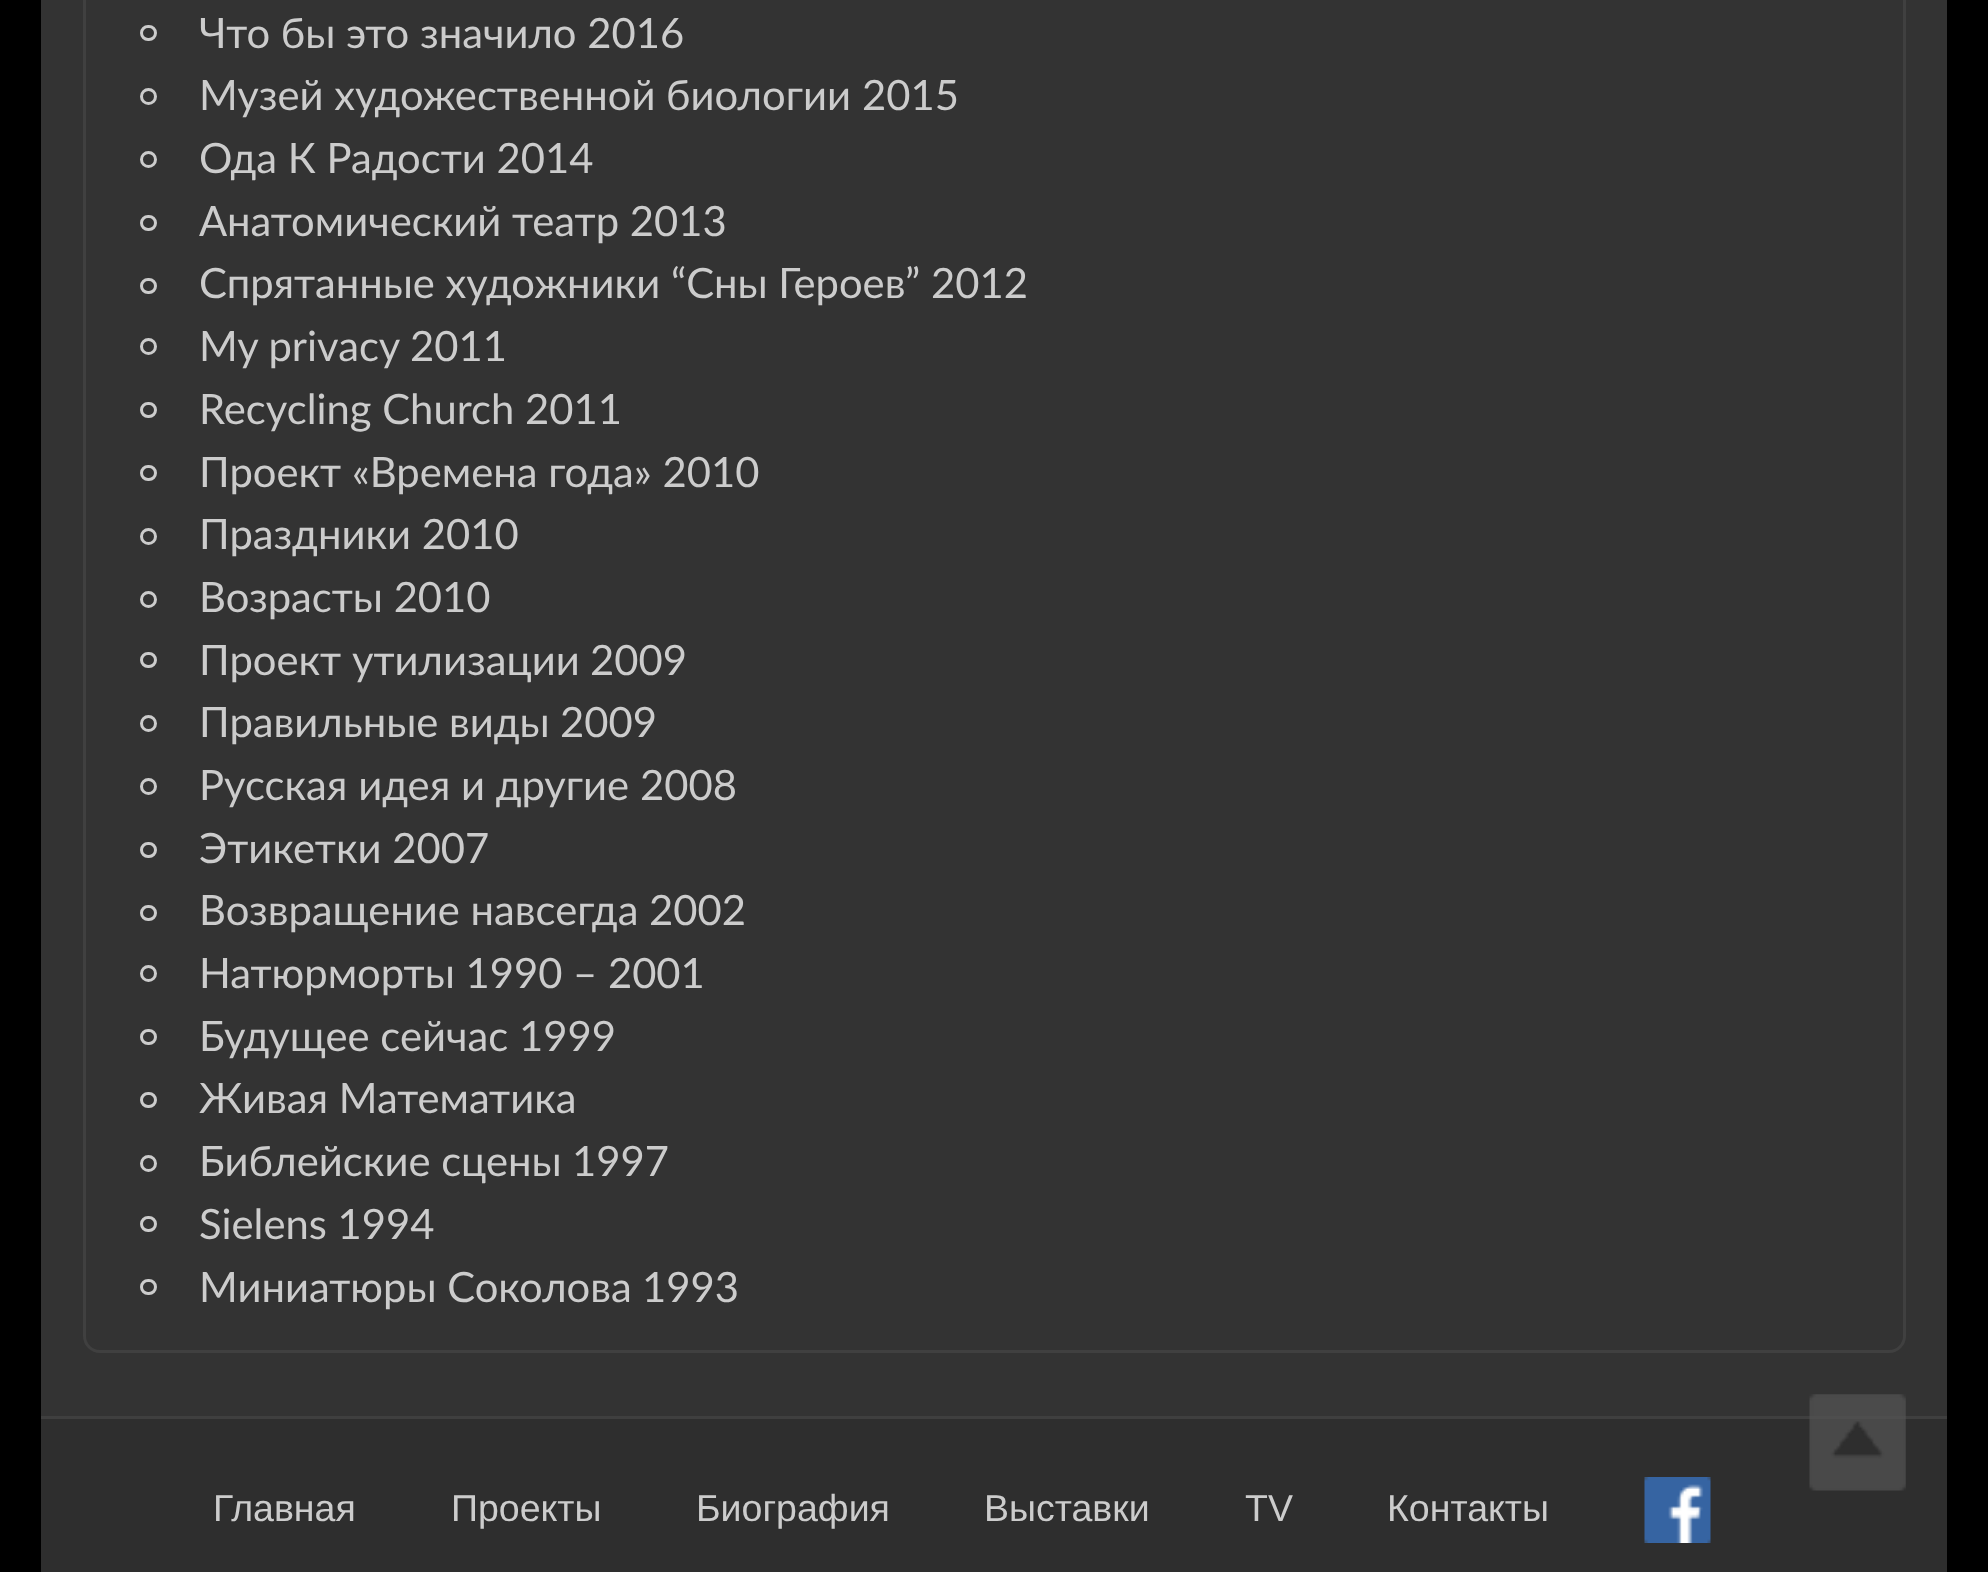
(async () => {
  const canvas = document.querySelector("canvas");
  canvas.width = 1988;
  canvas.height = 1572;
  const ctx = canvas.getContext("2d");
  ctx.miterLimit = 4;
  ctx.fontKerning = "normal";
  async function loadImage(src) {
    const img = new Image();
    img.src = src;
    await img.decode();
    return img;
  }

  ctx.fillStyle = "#000000";
  ctx.fillRect(0, 0, 1988, 1572);
  ctx.fillStyle = "#333333";
  ctx.fillRect(41, 0, 1906, 1416);
  ctx.beginPath();
  ctx.roundRect(84.5, -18.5, 1820, 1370, 15.5);
  ctx.strokeStyle = "#404040";
  ctx.lineWidth = 3;
  ctx.stroke();
  ctx.beginPath();
  ctx.roundRect(141.5, 26.5, 14, 13, 6.5);
  ctx.strokeStyle = "#cccccc";
  ctx.stroke();
  ctx.beginPath();
  ctx.arc(148.5, 96.5, 7, 0, Math.PI * 2);
  ctx.stroke();
  ctx.beginPath();
  ctx.arc(148.5, 159.5, 7, 0, Math.PI * 2);
  ctx.stroke();
  ctx.beginPath();
  ctx.roundRect(141.5, 216.5, 14, 13, 6.5);
  ctx.stroke();
  ctx.beginPath();
  ctx.roundRect(141.5, 279.5, 14, 13, 6.5);
  ctx.stroke();
  ctx.beginPath();
  ctx.arc(148.5, 346.5, 7, 0, Math.PI * 2);
  ctx.stroke();
  ctx.beginPath();
  ctx.roundRect(141.5, 403.5, 14, 13, 6.5);
  ctx.stroke();
  ctx.beginPath();
  ctx.roundRect(141.5, 466.5, 14, 13, 6.5);
  ctx.stroke();
  ctx.beginPath();
  ctx.arc(148.5, 536.5, 7, 0, Math.PI * 2);
  ctx.stroke();
  ctx.beginPath();
  ctx.arc(148.5, 599.5, 7, 0, Math.PI * 2);
  ctx.stroke();
  ctx.beginPath();
  ctx.roundRect(141.5, 653.5, 14, 13, 6.5);
  ctx.stroke();
  ctx.beginPath();
  ctx.arc(148.5, 723.5, 7, 0, Math.PI * 2);
  ctx.stroke();
  ctx.beginPath();
  ctx.arc(148.5, 786.5, 7, 0, Math.PI * 2);
  ctx.stroke();
  ctx.beginPath();
  ctx.roundRect(141.5, 843.5, 14, 13, 6.5);
  ctx.stroke();
  ctx.beginPath();
  ctx.roundRect(141.5, 906.5, 14, 13, 6.5);
  ctx.stroke();
  ctx.beginPath();
  ctx.arc(148.5, 973.5, 7, 0, Math.PI * 2);
  ctx.stroke();
  ctx.beginPath();
  ctx.roundRect(141.5, 1030.5, 14, 13, 6.5);
  ctx.stroke();
  ctx.beginPath();
  ctx.roundRect(141.5, 1093.5, 14, 13, 6.5);
  ctx.stroke();
  ctx.beginPath();
  ctx.arc(148.5, 1163.5, 7, 0, Math.PI * 2);
  ctx.stroke();
  ctx.beginPath();
  ctx.roundRect(141.5, 1217.5, 14, 13, 6.5);
  ctx.stroke();
  ctx.beginPath();
  ctx.roundRect(141.5, 1280.5, 14, 13, 6.5);
  ctx.stroke();
  ctx.fillStyle = "#2e2e2e";
  ctx.fillRect(41, 1419, 1906, 153);
  ctx.fillStyle = "#3f3f3f";
  ctx.fillRect(41, 1416, 1906, 3);
  ctx.drawImage(await loadImage("img/1.png"), 1644, 1477, 67, 66);
  ctx.drawImage(await loadImage("img/2.png"), 1809, 1394, 97, 97);
  ctx.font = "41.75px Lato";
  ctx.fillStyle = "#cccccc";
  for (const [text, x, y] of [
    ["Что бы это значило 2016", 199, 48],
    ["Музей художественной биологии", 199, 110],
    ["2015", 862, 110],
    ["Ода К Радости 2014", 199, 173],
    ["Анатомический театр 2013", 199, 236],
    ["Спрятанные художники “Сны Героев”", 199, 298],
    ["2012", 931, 298],
    ["My privacy 2011", 199, 361],
    ["Recycling Church", 199, 424],
    ["2011", 525, 424],
    ["Проект «Времена года» 2010", 199, 487],
    ["Праздники 2010", 199, 549],
    ["Возрасты 2010", 199, 612],
    ["Проект утилизации", 199, 675],
    ["2009", 590, 675],
    ["Правильные виды", 199, 737],
    ["2009", 560, 737],
    ["Русская идея и другие", 199, 800],
    ["2008", 640, 800],
    ["Этикетки 2007", 199, 863],
    ["Возвращение навсегда", 199, 925],
    ["2002", 649, 925],
    ["Натюрморты 1990 – 2001", 199, 988],
    ["Будущее сейчас", 199, 1051],
    ["1999", 519, 1051],
    ["Живая Математика", 199, 1113],
    ["Библейские сцены", 199, 1176],
    ["1997", 572, 1176],
    ["Sielens 1994", 199, 1239],
    ["Миниатюры Соколова", 199, 1302],
    ["1993", 642, 1302],
  ]) {
    ctx.fillText(text, x, y);
  }
  ctx.font = "37.5px Liberation Sans";
  for (const [text, x, y] of [
    ["Главная", 213, 1521],
    ["Проекты", 451, 1521],
    ["Биография", 696, 1521],
    ["Выставки", 984, 1521],
    ["TV", 1245, 1521],
    ["Контакты", 1387, 1521],
  ]) {
    ctx.fillText(text, x, y);
  }
})();
